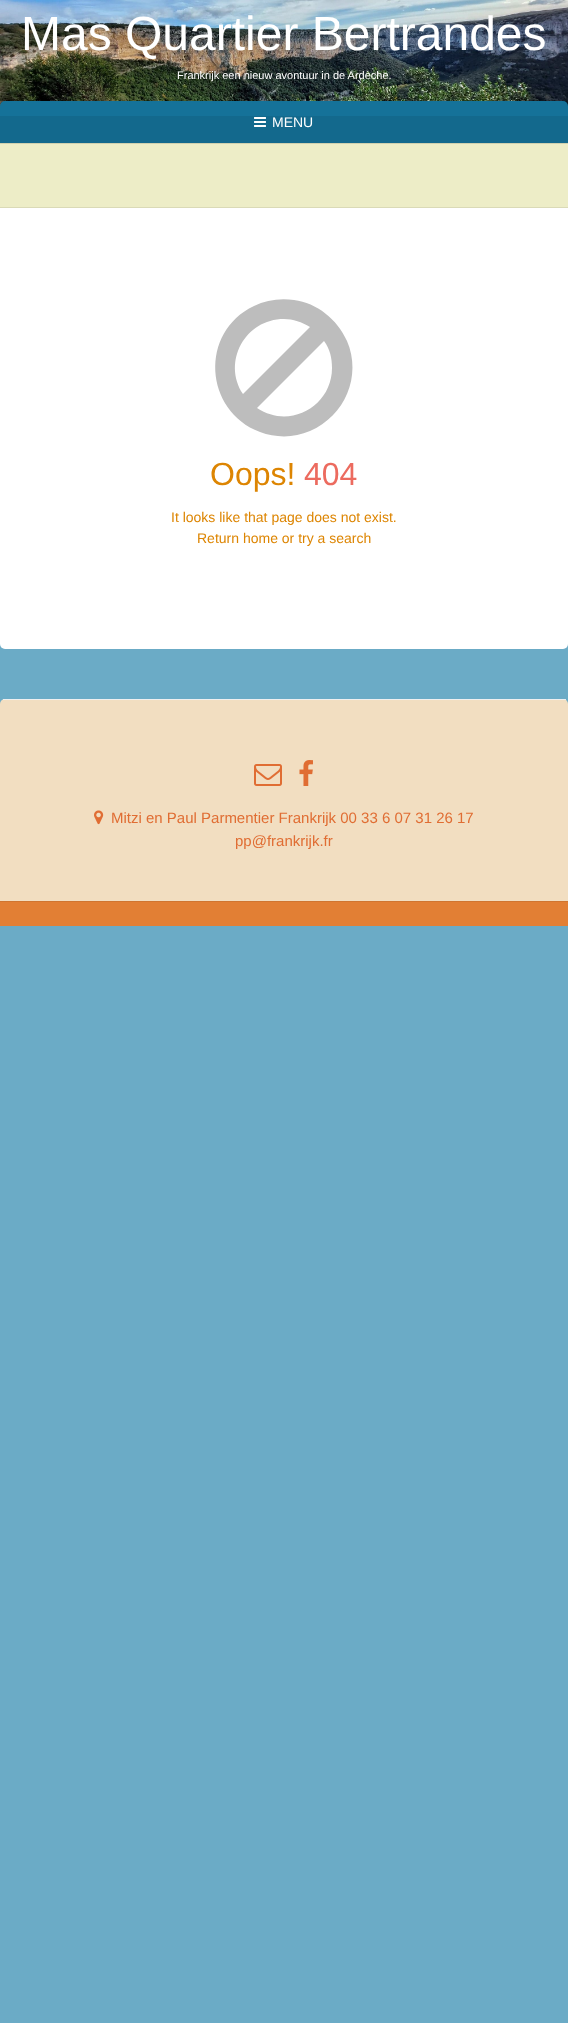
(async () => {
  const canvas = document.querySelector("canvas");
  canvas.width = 568;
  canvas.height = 2023;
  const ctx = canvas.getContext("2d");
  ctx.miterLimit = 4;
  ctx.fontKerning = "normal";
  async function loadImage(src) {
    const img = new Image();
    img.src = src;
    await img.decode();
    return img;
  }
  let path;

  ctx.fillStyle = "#6babc6";
  ctx.fillRect(0, 0, 568, 2023);
  ctx.drawImage(await loadImage("img/1.png"), 0, 0, 568, 106);
  ctx.fillStyle = "#d1d1af";
  ctx.fillRect(0, 143, 568, 1);
  ctx.fillStyle = "#157299";
  ctx.beginPath();
  ctx.roundRect(0, 101, 568, 42, [5, 5, 0, 0]);
  ctx.fill();
  ctx.fillStyle = "#13698d";
  ctx.fillRect(0, 116, 568, 27);
  ctx.drawImage(await loadImage("img/2.png"), 254, 117, 12, 10);
  ctx.fillStyle = "#ededc7";
  ctx.fillRect(0, 144, 568, 63);
  ctx.fillStyle = "#dadab7";
  ctx.fillRect(0, 207, 568, 1);
  ctx.fillStyle = "#ffffff";
  ctx.beginPath();
  ctx.roundRect(0, 208, 568, 441, [0, 0, 5, 5]);
  ctx.fill();
  ctx.fillStyle = "#bdbdbd";
  path = new Path2D("M332 368C332 358 330 349 324 341L257 408C290 430 332 406 332 368ZM243 394L310 327C302 322 293 319 284 319C245 319 222 362 243 394ZM347 341C362 376 345 416 310 431C294 438 276 438 260 432C204 411 199 332 254 306C266 300 280 298 294 300C317 303 337 319 347 341Z");
  ctx.fill(path);
  ctx.fillStyle = "#f2dec1";
  ctx.beginPath();
  ctx.roundRect(0, 699, 568, 202, [5, 5, 0, 0]);
  ctx.fill();
  ctx.fillStyle = "#efefef";
  ctx.fillRect(3, 699, 563, 1);
  ctx.drawImage(await loadImage("img/3.png"), 254, 764, 28, 22);
  ctx.drawImage(await loadImage("img/4.png"), 299, 760, 14, 26);
  ctx.drawImage(await loadImage("img/5.png"), 94, 810, 10, 15);
  ctx.fillStyle = "#e27f34";
  ctx.fillRect(0, 902, 568, 24);
  ctx.fillStyle = "#d07530";
  ctx.fillRect(0, 901, 568, 1);
  ctx.font = "48px Liberation Sans";
  ctx.fillStyle = "#ffffff";
  ctx.fillText("Mas Quartier Bertrandes", 21, 50);
  ctx.font = "11px Liberation Sans";
  ctx.fillText("Frankrijk een nieuw avontuur in de Ardèche.", 177, 79);
  ctx.font = "14px Liberation Sans";
  ctx.fillText("MENU", 272, 127);
  ctx.font = "32px Liberation Sans";
  ctx.fillStyle = "#dd8502";
  ctx.fillText("Oops!", 210, 485);
  ctx.fillStyle = "#ec6b5f";
  ctx.fillText("404", 304, 485);
  ctx.font = "14px Liberation Sans";
  ctx.fillStyle = "#dd8502";
  ctx.fillText("It looks like that page does not exist.", 171, 522);
  ctx.fillText("Return home or try a search", 197, 543);
  ctx.font = "15px Liberation Sans";
  ctx.fillStyle = "#e06d33";
  ctx.fillText("Mitzi en Paul Parmentier Frankrijk 00 33 6 07 31 26 17", 111, 823);
  ctx.fillText("pp@frankrijk.fr", 235, 846);
})();
